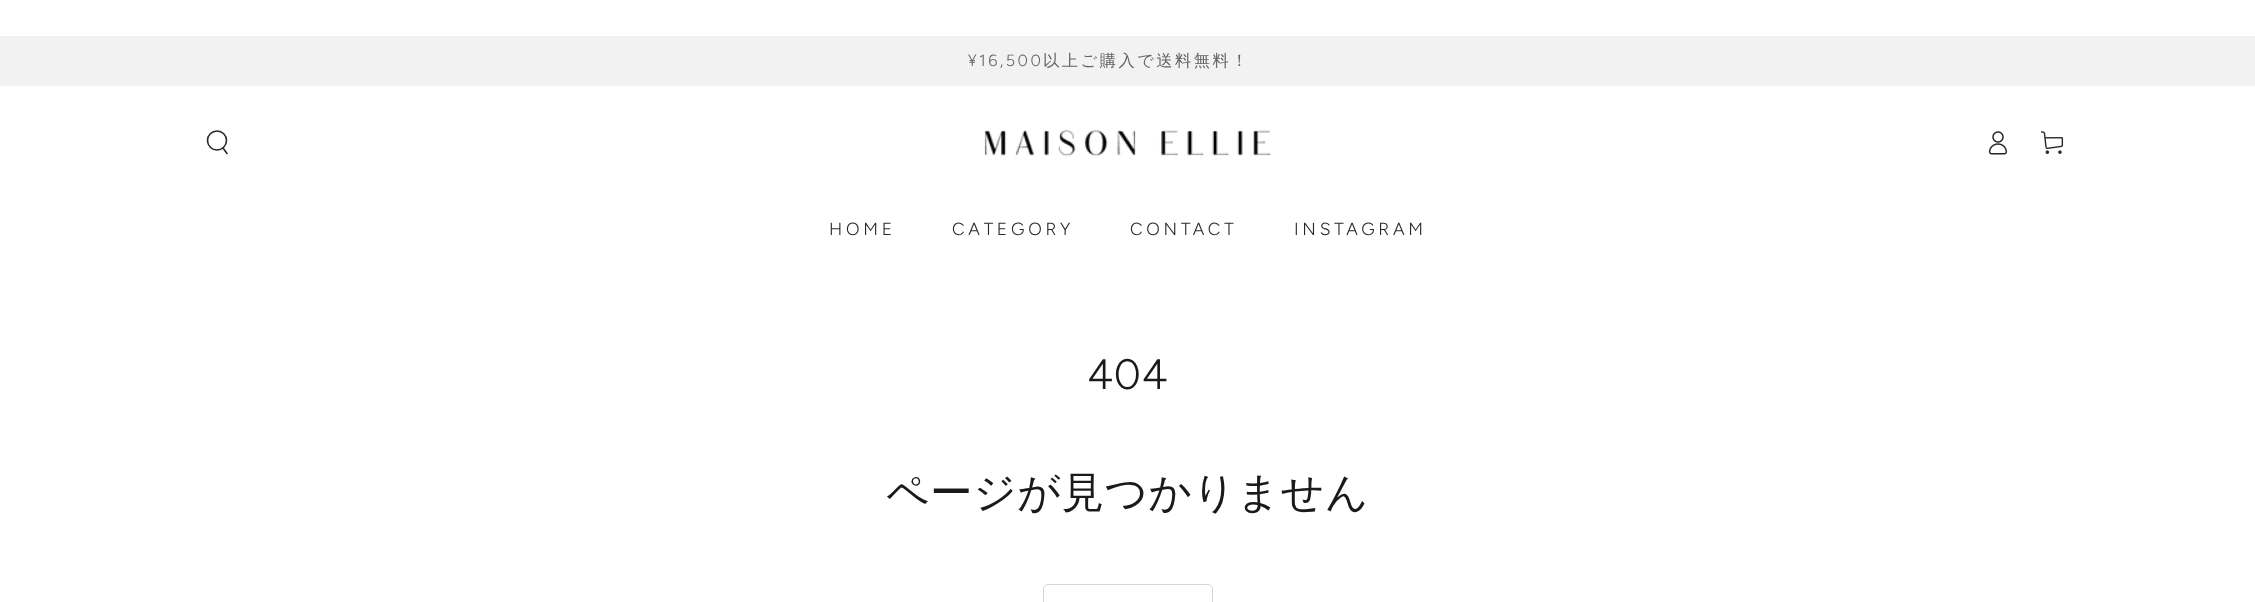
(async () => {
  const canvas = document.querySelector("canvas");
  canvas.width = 2255;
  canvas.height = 602;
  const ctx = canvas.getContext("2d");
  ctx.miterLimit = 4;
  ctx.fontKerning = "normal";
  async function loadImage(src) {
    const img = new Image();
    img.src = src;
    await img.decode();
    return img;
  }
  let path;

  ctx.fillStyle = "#ffffff";
  ctx.fillRect(0, 0, 2255, 602);
  ctx.fillStyle = "#f2f2f2";
  ctx.fillRect(0, 36, 2255, 50);
  ctx.beginPath();
  ctx.arc(217, 140.5, 9.5, 0, Math.PI * 2);
  ctx.strokeStyle = "#282828";
  ctx.lineWidth = 1.6;
  ctx.stroke();
  path = new Path2D("M223 148L227 153.5");
  ctx.lineCap = "round";
  ctx.stroke(path);
  ctx.drawImage(await loadImage("img/1.png"), 984, 130, 287, 27);
  ctx.drawImage(await loadImage("img/2.png"), 1988, 131, 20, 24);
  ctx.drawImage(await loadImage("img/3.png"), 2041, 131, 23, 23);
  ctx.beginPath();
  ctx.roundRect(1043.5, 584.5, 169, 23, 4.5);
  ctx.strokeStyle = "#d2d5d9";
  ctx.lineWidth = 1;
  ctx.stroke();
  ctx.letterSpacing = "2.5px";
  ctx.font = "300 16.25px Figtree";
  ctx.fillStyle = "#646464";
  ctx.fillText("¥16,500", 968, 66);
  ctx.font = "500 16.25px WenQuanYi Zen Hei";
  ctx.fillText("以上ご購入で送料無料！", 1043, 66);
  ctx.letterSpacing = "3.75px";
  ctx.font = "300 17.5px Figtree";
  ctx.fillStyle = "#282828";
  for (const [text, x, y] of [
    ["HOME", 829, 235],
    ["CATEGORY", 952, 235],
    ["CONTACT", 1130, 235],
    ["INSTAGRAM", 1294, 235],
  ]) {
    ctx.fillText(text, x, y);
  }
  ctx.letterSpacing = "0.6px";
  ctx.font = "300 42.5px Figtree";
  ctx.fillStyle = "#1a1b18";
  ctx.fillText("404", 1087, 389);
  ctx.font = "500 42.5px WenQuanYi Zen Hei";
  ctx.fillText("ページが見つかりません", 886, 507);
})();
